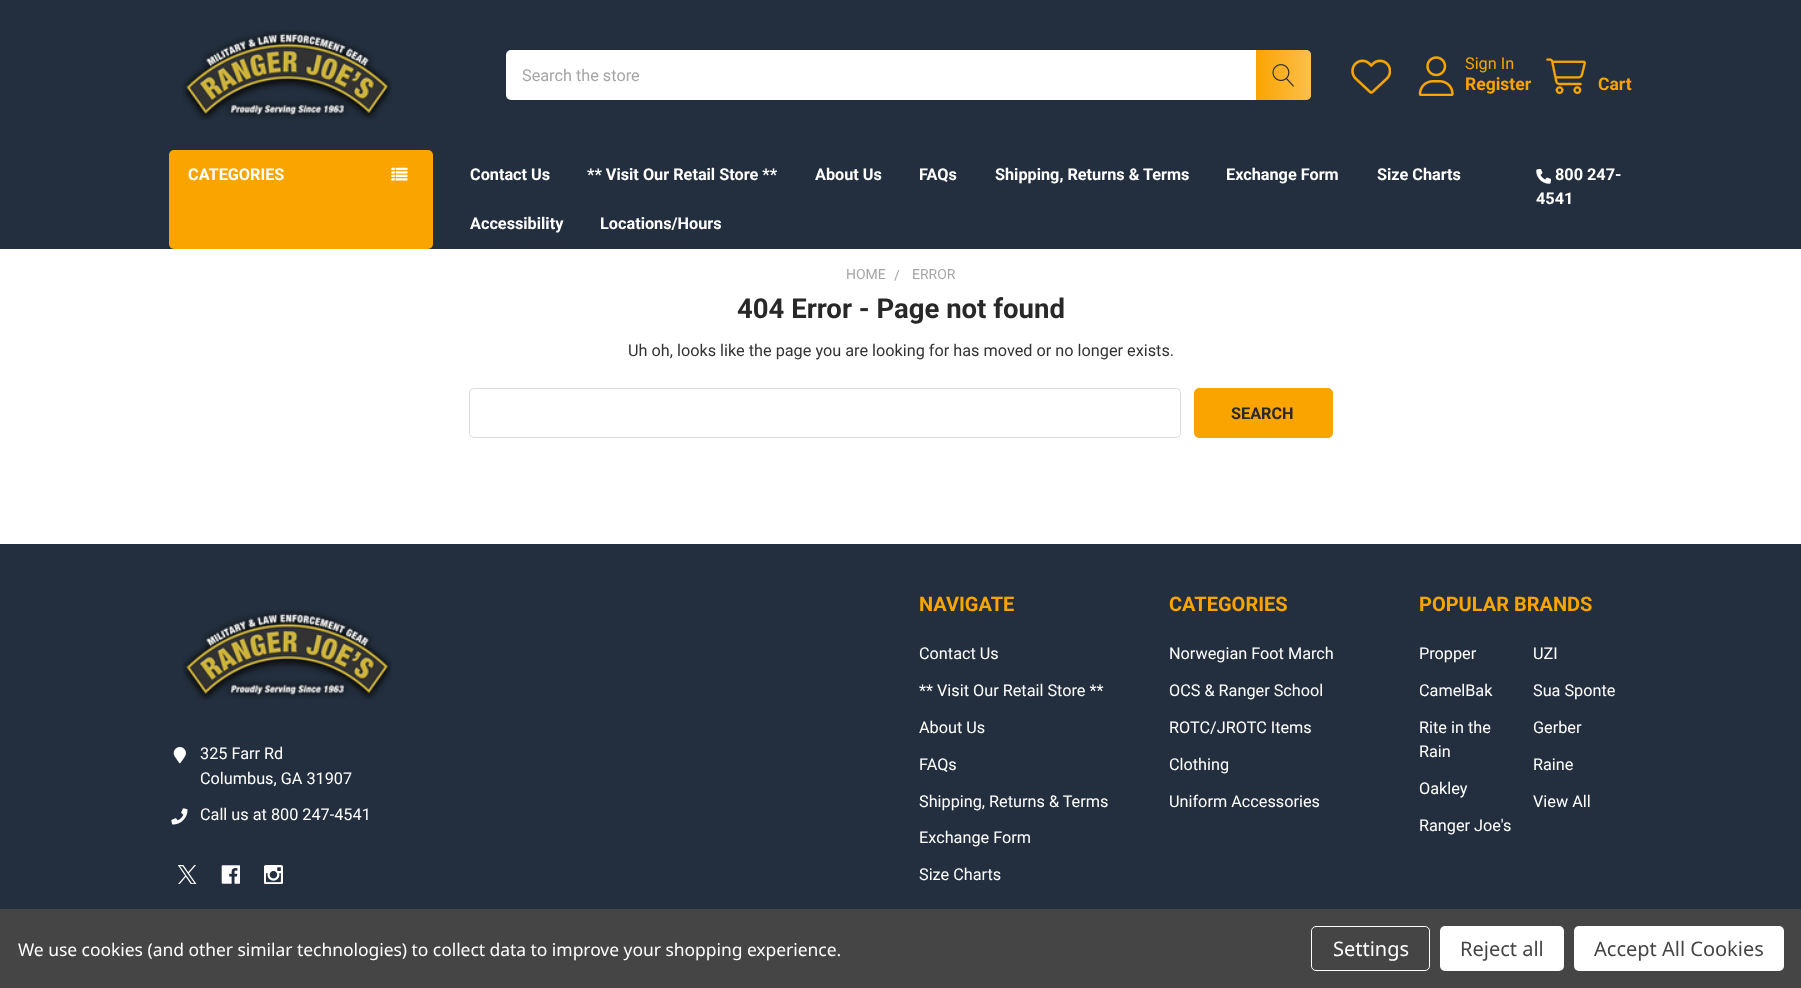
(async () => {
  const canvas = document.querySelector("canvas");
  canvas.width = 1801;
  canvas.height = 988;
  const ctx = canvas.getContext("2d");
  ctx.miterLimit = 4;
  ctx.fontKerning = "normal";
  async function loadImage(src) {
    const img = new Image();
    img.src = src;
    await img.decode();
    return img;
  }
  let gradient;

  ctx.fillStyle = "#ffffff";
  ctx.fillRect(0, 0, 1801, 988);
  ctx.fillStyle = "#232f3e";
  ctx.fillRect(0, 0, 1801, 249);
  ctx.drawImage(await loadImage("img/1.png"), 182, 30, 210, 90);
  ctx.fillStyle = "#ffffff";
  ctx.beginPath();
  ctx.roundRect(506, 50, 805, 50, 5);
  ctx.fill();
  gradient = ctx.createLinearGradient(1256, 75, 1311, 75);
  gradient.addColorStop(0, "#faa400");
  gradient.addColorStop(1, "rgba(250, 164, 0, 0.7)");
  ctx.fillStyle = gradient;
  ctx.beginPath();
  ctx.roundRect(1256, 50, 55, 50, [0, 5, 5, 0]);
  ctx.fill();
  ctx.drawImage(await loadImage("img/2.png"), 1272, 64, 22, 23);
  ctx.drawImage(await loadImage("img/3.png"), 1351, 59, 40, 35);
  ctx.drawImage(await loadImage("img/4.png"), 1418, 56, 36, 40);
  ctx.drawImage(await loadImage("img/5.png"), 1546, 58, 40, 37);
  ctx.fillStyle = "#faa400";
  ctx.beginPath();
  ctx.roundRect(169, 150, 264, 99, 5);
  ctx.fill();
  ctx.drawImage(await loadImage("img/6.png"), 391, 167, 17, 14);
  ctx.drawImage(await loadImage("img/7.png"), 1536, 169, 15, 15);
  ctx.beginPath();
  ctx.roundRect(469.5, 388.5, 711, 49, 4.5);
  ctx.strokeStyle = "#dcdcdc";
  ctx.stroke();
  ctx.beginPath();
  ctx.roundRect(1194.5, 388.5, 138, 49, 4.5);
  ctx.fill();
  ctx.strokeStyle = "#faa400";
  ctx.stroke();
  ctx.fillStyle = "#232f3e";
  ctx.fillRect(0, 544, 1801, 365);
  ctx.drawImage(await loadImage("img/1.png"), 182, 610, 210, 90);
  ctx.drawImage(await loadImage("img/8.png"), 173, 747, 13, 17);
  ctx.drawImage(await loadImage("img/9.png"), 171, 808, 17, 17);
  ctx.drawImage(await loadImage("img/10.png"), 178, 865, 19, 19);
  ctx.drawImage(await loadImage("img/11.png"), 221, 865, 19, 19);
  ctx.drawImage(await loadImage("img/12.png"), 264, 865, 19, 19);
  ctx.fillStyle = "#454545";
  ctx.fillRect(0, 909, 1801, 79);
  ctx.beginPath();
  ctx.roundRect(1311.5, 926.5, 118, 44, 4.5);
  ctx.strokeStyle = "#ffffff";
  ctx.stroke();
  ctx.fillStyle = "#ffffff";
  ctx.beginPath();
  ctx.roundRect(1440, 926, 124, 45, 5);
  ctx.fill();
  ctx.beginPath();
  ctx.roundRect(1574, 926, 210, 45, 5);
  ctx.fill();
  ctx.font = "16.25px Roboto";
  ctx.fillStyle = "#a5a5a5";
  ctx.fillText("Search the store", 522, 81);
  ctx.fillStyle = "#faa400";
  ctx.fillText("Sign In", 1465, 69);
  ctx.font = "bold 17.5px Roboto";
  ctx.fillText("Register", 1465, 90);
  ctx.fillText("Cart", 1598, 90);
  ctx.font = "bold 16.25px Roboto";
  ctx.fillStyle = "#ffffff";
  for (const [text, x, y] of [
    ["CATEGORIES", 188, 180],
    ["Contact Us", 470, 180],
    ["** Visit Our Retail Store **", 587, 180],
    ["About Us", 815, 180],
    ["FAQs", 919, 180],
    ["Shipping, Returns & Terms", 995, 180],
    ["Exchange Form", 1226, 180],
    ["Size Charts", 1377, 180],
    ["Accessibility", 470, 229],
    ["Locations/Hours", 600, 229],
    ["800 247-", 1555, 180],
    ["4541", 1536, 204],
  ]) {
    ctx.fillText(text, x, y);
  }
  ctx.font = "14px Roboto";
  ctx.fillStyle = "#a5a5a5";
  for (const [text, x, y] of [
    ["HOME", 846, 279],
    ["/", 894, 280],
    ["ERROR", 912, 279],
  ]) {
    ctx.fillText(text, x, y);
  }
  ctx.font = "bold 27.5px Roboto";
  ctx.fillStyle = "#282828";
  ctx.fillText("404 Error - Page not found", 737, 318);
  ctx.font = "16.25px Roboto";
  ctx.fillStyle = "#333333";
  ctx.fillText("Uh oh, looks like the page you are looking for has moved or no longer exists.", 628, 356);
  ctx.font = "bold 16.25px Roboto";
  ctx.fillStyle = "#282828";
  ctx.fillText("SEARCH", 1231, 419);
  ctx.font = "16.25px Roboto";
  ctx.fillStyle = "#ffffff";
  for (const [text, x, y] of [
    ["325 Farr Rd", 200, 759],
    ["Columbus, GA 31907", 200, 784],
    ["Call us at 800 247-4541", 200, 820],
  ]) {
    ctx.fillText(text, x, y);
  }
  ctx.font = "bold 20px Roboto";
  ctx.fillStyle = "#faa400";
  ctx.fillText("NAVIGATE", 919, 611);
  ctx.font = "16.25px Roboto";
  ctx.fillStyle = "#ffffff";
  for (const [text, x, y] of [
    ["Contact Us", 919, 659],
    ["** Visit Our Retail Store **", 919, 696],
    ["About Us", 919, 733],
    ["FAQs", 919, 770],
    ["Shipping, Returns & Terms", 919, 807],
    ["Exchange Form", 919, 843],
    ["Size Charts", 919, 880],
  ]) {
    ctx.fillText(text, x, y);
  }
  ctx.font = "bold 20px Roboto";
  ctx.fillStyle = "#faa400";
  ctx.fillText("CATEGORIES", 1169, 611);
  ctx.font = "16.25px Roboto";
  ctx.fillStyle = "#ffffff";
  for (const [text, x, y] of [
    ["Norwegian Foot March", 1169, 659],
    ["OCS & Ranger School", 1169, 696],
    ["ROTC/JROTC Items", 1169, 733],
    ["Clothing", 1169, 770],
    ["Uniform Accessories", 1169, 807],
  ]) {
    ctx.fillText(text, x, y);
  }
  ctx.font = "bold 20px Roboto";
  ctx.fillStyle = "#faa400";
  ctx.fillText("POPULAR BRANDS", 1419, 611);
  ctx.font = "16.25px Roboto";
  ctx.fillStyle = "#ffffff";
  for (const [text, x, y] of [
    ["Propper", 1419, 659],
    ["UZI", 1533, 659],
    ["CamelBak", 1419, 696],
    ["Sua Sponte", 1533, 696],
    ["Rite in the", 1419, 733],
    ["Rain", 1419, 757],
    ["Gerber", 1533, 733],
    ["Raine", 1533, 770],
    ["Oakley", 1419, 794],
    ["View All", 1533, 807],
    ["Ranger Joe's", 1419, 831],
  ]) {
    ctx.fillText(text, x, y);
  }
  ctx.letterSpacing = "-0.05px";
  ctx.font = "17.5px Noto Sans";
  ctx.fillText("We use cookies (and other similar technologies) to collect data to improve your shopping experience.", 18, 956);
  ctx.letterSpacing = "0px";
  ctx.font = "20px Noto Sans";
  ctx.fillText("Settings", 1333, 956);
  ctx.fillStyle = "#454545";
  ctx.fillText("Reject all", 1460, 956);
  ctx.fillText("Accept All Cookies", 1594, 956);
})();
